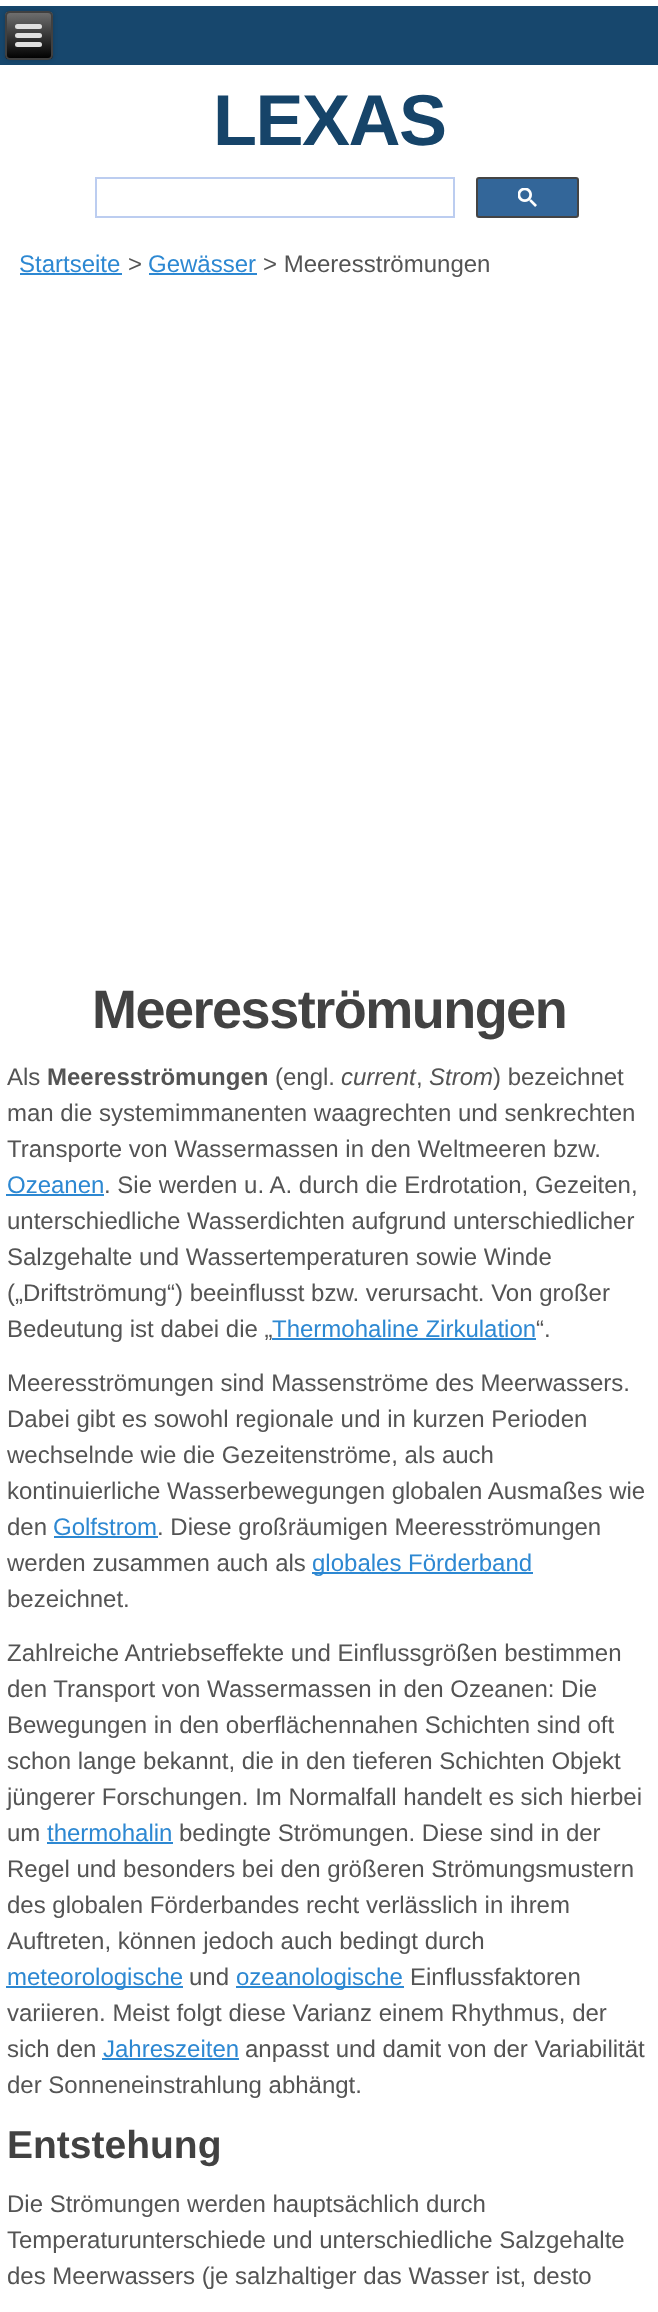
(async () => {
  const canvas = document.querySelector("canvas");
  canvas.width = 658;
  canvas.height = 2312;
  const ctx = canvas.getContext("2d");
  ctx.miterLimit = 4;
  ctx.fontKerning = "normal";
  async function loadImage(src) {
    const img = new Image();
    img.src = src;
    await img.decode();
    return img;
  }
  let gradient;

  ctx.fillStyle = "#ffffff";
  ctx.fillRect(0, 0, 658, 2312);
  ctx.fillStyle = "#17476d";
  ctx.fillRect(0, 6, 658, 59);
  ctx.fillStyle = "rgba(0, 0, 0, 0.2)";
  ctx.filter = "blur(2px)";
  ctx.beginPath();
  ctx.roundRect(5, 11, 48, 49, 5);
  ctx.fill();
  ctx.filter = "none";
  ctx.save();
  ctx.beginPath();
  ctx.roundRect(5, 11, 48, 49, 5);
  ctx.clip();
  gradient = ctx.createLinearGradient(28, 12, 29, 59);
  gradient.addColorStop(0, "#707070");
  gradient.addColorStop(1, "#000000");
  ctx.fillStyle = gradient;
  ctx.fillRect(5, 12, 48, 47);
  ctx.restore();
  ctx.beginPath();
  ctx.roundRect(6, 12, 46, 47, 4);
  ctx.strokeStyle = "#404040";
  ctx.lineWidth = 2;
  ctx.stroke();
  ctx.fillStyle = "#e0e0e0";
  ctx.beginPath();
  ctx.roundRect(15, 24, 27, 5, 2.5);
  ctx.fill();
  ctx.beginPath();
  ctx.roundRect(15, 33, 27, 5, 2.5);
  ctx.fill();
  ctx.beginPath();
  ctx.roundRect(15, 42, 27, 5, 2.5);
  ctx.fill();
  ctx.strokeStyle = "#bccdf0";
  ctx.strokeRect(96, 178, 358, 39);
  ctx.fillStyle = "#336699";
  ctx.beginPath();
  ctx.roundRect(477, 178, 101, 39, 2);
  ctx.fill();
  ctx.strokeStyle = "#444444";
  ctx.stroke();
  ctx.drawImage(await loadImage("img/1.png"), 518, 188, 19, 19);
  for (const [x, y, w, h, color] of [
    [20, 273, 102, 2, "#2d88d2"],
    [149, 273, 108, 2, "#2d88d2"],
    [6, 1194, 98, 2, "#2d88d2"],
    [272, 1338, 264, 2, "#2d88d2"],
    [54, 1536, 104, 2, "#2d88d2"],
    [312, 1572, 221, 2, "#2d88d2"],
    [47, 1842, 126, 2, "#2d88d2"],
    [6, 1986, 177, 2, "#2d88d2"],
    [236, 1986, 168, 2, "#2d88d2"],
    [102, 2058, 137, 2, "#2d88d2"],
  ]) {
    ctx.fillStyle = color;
    ctx.fillRect(x, y, w, h);
  }
  ctx.letterSpacing = "-1.5px";
  ctx.font = "bold 72px Liberation Sans";
  ctx.fillStyle = "#164469";
  ctx.fillText("LEXAS", 213, 145);
  ctx.letterSpacing = "0px";
  ctx.font = "24px Liberation Sans";
  ctx.fillStyle = "#2d88d2";
  ctx.fillText("Startseite", 19, 272);
  ctx.fillStyle = "#545454";
  ctx.fillText(">", 128, 272);
  ctx.fillStyle = "#2d88d2";
  ctx.fillText("Gewässer", 148, 272);
  ctx.fillStyle = "#545454";
  ctx.fillText("> Meeresströmungen", 263, 272);
  ctx.letterSpacing = "-1.5px";
  ctx.font = "bold 54px Liberation Sans";
  ctx.fillStyle = "#424242";
  ctx.fillText("Meeresströmungen", 92, 1028);
  ctx.letterSpacing = "0px";
  ctx.font = "24px Liberation Sans";
  ctx.fillStyle = "#545454";
  ctx.fillText("Als", 7, 1085);
  ctx.font = "bold 24px Liberation Sans";
  ctx.fillText("Meeresströmungen", 47, 1085);
  ctx.font = "24px Liberation Sans";
  ctx.fillText("(engl.", 275, 1085);
  ctx.font = "italic 24px Liberation Sans";
  ctx.fillText("current", 341, 1085);
  ctx.font = "24px Liberation Sans";
  ctx.fillText(",", 416, 1085);
  ctx.font = "italic 24px Liberation Sans";
  ctx.fillText("Strom", 429, 1085);
  ctx.font = "24px Liberation Sans";
  for (const [text, x, y] of [
    [") bezeichnet", 493, 1085],
    ["man die systemimmanenten waagrechten und senkrechten", 7, 1121],
    ["Transporte von Wassermassen in den Weltmeeren bzw.", 7, 1157],
  ]) {
    ctx.fillText(text, x, y);
  }
  ctx.fillStyle = "#2d88d2";
  ctx.fillText("Ozeanen", 7, 1193);
  ctx.fillStyle = "#545454";
  for (const [text, x, y] of [
    [". Sie werden u. A. durch die Erdrotation, Gezeiten,", 104, 1193],
    ["unterschiedliche Wasserdichten aufgrund unterschiedlicher", 7, 1229],
    ["Salzgehalte und Wassertemperaturen sowie Winde", 7, 1265],
    ["(„Driftströmung“) beeinflusst bzw. verursacht. Von großer", 7, 1301],
    ["Bedeutung ist dabei die „", 7, 1337],
  ]) {
    ctx.fillText(text, x, y);
  }
  ctx.fillStyle = "#2d88d2";
  ctx.fillText("Thermohaline Zirkulation", 272, 1337);
  ctx.fillStyle = "#545454";
  for (const [text, x, y] of [
    ["“.", 536, 1337],
    ["Meeresströmungen sind Massenströme des Meerwassers.", 7, 1391],
    ["Dabei gibt es sowohl regionale und in kurzen Perioden", 7, 1427],
    ["wechselnde wie die Gezeitenströme, als auch", 7, 1463],
    ["kontinuierliche Wasserbewegungen globalen Ausmaßes wie", 7, 1499],
    ["den", 7, 1535],
  ]) {
    ctx.fillText(text, x, y);
  }
  ctx.fillStyle = "#2d88d2";
  ctx.fillText("Golfstrom", 53, 1535);
  ctx.fillStyle = "#545454";
  ctx.fillText(". Diese großräumigen Meeresströmungen", 157, 1535);
  ctx.fillText("werden zusammen auch als", 7, 1571);
  ctx.fillStyle = "#2d88d2";
  ctx.fillText("globales Förderband", 312, 1571);
  ctx.fillStyle = "#545454";
  for (const [text, x, y] of [
    ["bezeichnet.", 7, 1607],
    ["Zahlreiche Antriebseffekte und Einflussgrößen bestimmen", 7, 1661],
    ["den Transport von Wassermassen in den Ozeanen: Die", 7, 1697],
    ["Bewegungen in den oberflächennahen Schichten sind oft", 7, 1733],
    ["schon lange bekannt, die in den tieferen Schichten Objekt", 7, 1769],
    ["jüngerer Forschungen. Im Normalfall handelt es sich hierbei", 7, 1805],
    ["um", 7, 1841],
  ]) {
    ctx.fillText(text, x, y);
  }
  ctx.fillStyle = "#2d88d2";
  ctx.fillText("thermohalin", 47, 1841);
  ctx.fillStyle = "#545454";
  for (const [text, x, y] of [
    ["bedingte Strömungen. Diese sind in der", 179, 1841],
    ["Regel und besonders bei den größeren Strömungsmustern", 7, 1877],
    ["des globalen Förderbandes recht verlässlich in ihrem", 7, 1913],
    ["Auftreten, können jedoch auch bedingt durch", 7, 1949],
  ]) {
    ctx.fillText(text, x, y);
  }
  ctx.fillStyle = "#2d88d2";
  ctx.fillText("meteorologische", 7, 1985);
  ctx.fillStyle = "#545454";
  ctx.fillText("und", 189, 1985);
  ctx.fillStyle = "#2d88d2";
  ctx.fillText("ozeanologische", 236, 1985);
  ctx.fillStyle = "#545454";
  for (const [text, x, y] of [
    ["Einflussfaktoren", 410, 1985],
    ["variieren. Meist folgt diese Varianz einem Rhythmus, der", 7, 2021],
    ["sich den", 7, 2057],
  ]) {
    ctx.fillText(text, x, y);
  }
  ctx.fillStyle = "#2d88d2";
  ctx.fillText("Jahreszeiten", 103, 2057);
  ctx.fillStyle = "#545454";
  ctx.fillText("anpasst und damit von der Variabilität", 245, 2057);
  ctx.fillText("der Sonneneinstrahlung abhängt.", 7, 2093);
  ctx.font = "bold 39px Liberation Sans";
  ctx.fillStyle = "#424242";
  ctx.fillText("Entstehung", 7, 2158);
  ctx.font = "24px Liberation Sans";
  ctx.fillStyle = "#545454";
  for (const [text, x, y] of [
    ["Die Strömungen werden hauptsächlich durch", 7, 2212],
    ["Temperaturunterschiede und unterschiedliche Salzgehalte", 7, 2248],
    ["des Meerwassers (je salzhaltiger das Wasser ist, desto", 7, 2284],
  ]) {
    ctx.fillText(text, x, y);
  }
})();
